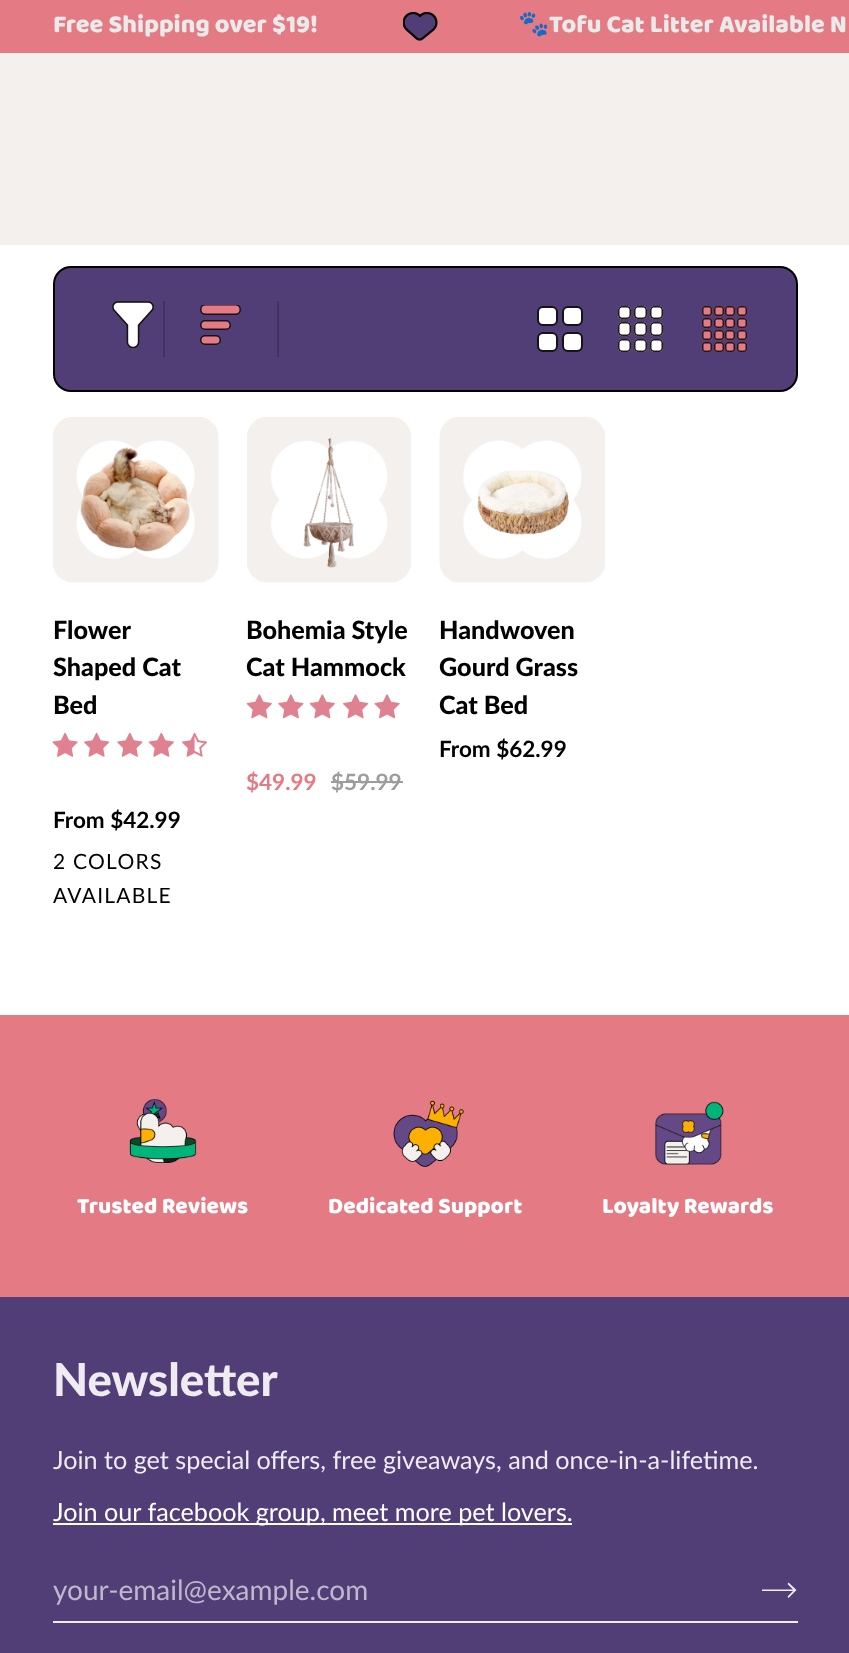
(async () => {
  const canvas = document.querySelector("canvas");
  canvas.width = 849;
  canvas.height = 1653;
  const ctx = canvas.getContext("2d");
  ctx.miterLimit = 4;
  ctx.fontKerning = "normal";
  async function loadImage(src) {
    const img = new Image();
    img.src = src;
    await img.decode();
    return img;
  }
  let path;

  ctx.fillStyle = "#ffffff";
  ctx.fillRect(0, 0, 849, 1653);
  ctx.fillStyle = "#e47a84";
  ctx.fillRect(0, 0, 849, 53);
  ctx.drawImage(await loadImage("img/1.png"), 403, 11, 35, 30);
  ctx.fillStyle = "#f4f0ed";
  ctx.fillRect(0, 53, 849, 192);
  ctx.fillStyle = "#523e77";
  ctx.beginPath();
  ctx.roundRect(54, 267, 743, 124, 17);
  ctx.fill();
  ctx.strokeStyle = "#000000";
  ctx.lineWidth = 2;
  ctx.stroke();
  ctx.fillStyle = "#42325f";
  ctx.fillRect(163, 301, 2, 56);
  ctx.drawImage(await loadImage("img/2.png"), 112, 301, 42, 47);
  ctx.fillRect(277, 301, 2, 56);
  ctx.save();
  ctx.beginPath();
  ctx.rect(200, 305, 42, 40);
  ctx.clip();
  ctx.fillStyle = "#e67a84";
  ctx.beginPath();
  ctx.roundRect(200.75, 304.75, 39.5, 9.5, 4.75);
  ctx.fill();
  ctx.strokeStyle = "#141414";
  ctx.lineWidth = 1.5;
  ctx.stroke();
  ctx.restore();
  ctx.fillStyle = "#e67a84";
  ctx.beginPath();
  ctx.roundRect(200.75, 320.75, 29.5, 8.5, 4.25);
  ctx.fill();
  ctx.strokeStyle = "#141414";
  ctx.lineWidth = 1.5;
  ctx.stroke();
  ctx.beginPath();
  ctx.roundRect(200.75, 335.75, 19.5, 8.5, 4.25);
  ctx.fill();
  ctx.stroke();
  ctx.fillStyle = "#ffffff";
  ctx.beginPath();
  ctx.roundRect(538, 307, 19, 18, 5);
  ctx.fill();
  ctx.lineWidth = 2;
  ctx.stroke();
  ctx.beginPath();
  ctx.roundRect(563, 307, 19, 18, 5);
  ctx.fill();
  ctx.stroke();
  ctx.beginPath();
  ctx.roundRect(538, 333, 19, 18, 5);
  ctx.fill();
  ctx.stroke();
  ctx.beginPath();
  ctx.roundRect(563, 333, 19, 18, 5);
  ctx.fill();
  ctx.stroke();
  ctx.drawImage(await loadImage("img/3.png"), 618, 306, 45, 46);
  ctx.drawImage(await loadImage("img/4.png"), 702, 306, 45, 46);
  ctx.drawImage(await loadImage("img/5.png"), 53, 417, 166, 166);
  ctx.drawImage(await loadImage("img/6.png"), 52, 732, 26, 25);
  ctx.drawImage(await loadImage("img/7.png"), 84, 732, 26, 25);
  ctx.drawImage(await loadImage("img/8.png"), 117, 732, 26, 25);
  ctx.drawImage(await loadImage("img/9.png"), 148, 732, 26, 25);
  ctx.drawImage(await loadImage("img/10.png"), 182, 732, 26, 25);
  ctx.drawImage(await loadImage("img/11.png"), 247, 417, 164, 166);
  ctx.drawImage(await loadImage("img/12.png"), 246, 694, 26, 25);
  ctx.drawImage(await loadImage("img/13.png"), 278, 694, 26, 25);
  ctx.drawImage(await loadImage("img/12.png"), 309, 694, 26, 25);
  ctx.drawImage(await loadImage("img/14.png"), 343, 694, 26, 25);
  ctx.drawImage(await loadImage("img/15.png"), 374, 694, 26, 25);
  ctx.fillStyle = "#9d9d9d";
  ctx.fillRect(331, 781, 72, 2);
  ctx.drawImage(await loadImage("img/16.png"), 439, 417, 166, 166);
  ctx.fillStyle = "#e47a84";
  ctx.fillRect(0, 1015, 849, 282);
  ctx.drawImage(await loadImage("img/17.png"), 129, 1099, 68, 64);
  ctx.drawImage(await loadImage("img/18.png"), 393, 1100, 71, 67);
  ctx.drawImage(await loadImage("img/19.png"), 655, 1101, 69, 64);
  for (const [x, y, w, h, color] of [
    [0, 1297, 849, 356, "#523e77"],
    [53, 1523, 519, 2, "#ffffff"],
    [53, 1621, 745, 2, "#eeecf1"],
  ]) {
    ctx.fillStyle = color;
    ctx.fillRect(x, y, w, h);
  }
  path = new Path2D("M787.5 1584L788.5 1582.5L796.5 1590L788.5 1598L787.5 1596.5L793 1591H762V1589.5H793Z");
  ctx.fill(path);
  ctx.font = "25.2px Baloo";
  ctx.fillStyle = "#e9eaea";
  ctx.fillText("Free Shipping over $19!", 53, 32);
  ctx.font = "25.2px Noto Color Emoji";
  ctx.fillText("🐾", 518, 32);
  ctx.font = "25.2px Baloo";
  ctx.fillText("Tofu Cat Litter Available N", 549, 32);
  ctx.font = "900 25.2px Lato";
  ctx.fillStyle = "#000000";
  for (const [text, x, y] of [
    ["Flower", 53, 639],
    ["Shaped Cat", 53, 676],
    ["Bed", 53, 714],
  ]) {
    ctx.fillText(text, x, y);
  }
  ctx.font = "bold 22.5px Lato";
  ctx.fillText("From $42.99", 53, 828);
  ctx.letterSpacing = "1.25px";
  ctx.font = "21px Lato";
  ctx.fillText("2 COLORS", 53, 869);
  ctx.fillText("AVAILABLE", 53, 903);
  ctx.letterSpacing = "0px";
  ctx.font = "900 25.2px Lato";
  ctx.fillText("Bohemia Style", 246, 639);
  ctx.fillText("Cat Hammock", 246, 676);
  ctx.font = "bold 22.5px Lato";
  ctx.fillStyle = "#e67a84";
  ctx.fillText("$49.99", 246, 790);
  ctx.fillStyle = "#9d9d9d";
  ctx.fillText("$59.99", 331, 790);
  ctx.font = "900 25.2px Lato";
  ctx.fillStyle = "#000000";
  for (const [text, x, y] of [
    ["Handwoven", 439, 639],
    ["Gourd Grass", 439, 676],
    ["Cat Bed", 439, 714],
  ]) {
    ctx.fillText(text, x, y);
  }
  ctx.font = "bold 22.5px Lato";
  ctx.fillText("From $62.99", 439, 757);
  ctx.font = "22.75px Baloo";
  ctx.fillStyle = "#ffffff";
  for (const [text, x, y] of [
    ["Trusted Reviews", 77, 1213],
    ["Dedicated Support", 328, 1213],
    ["Loyalty Rewards", 602, 1213],
  ]) {
    ctx.fillText(text, x, y);
  }
  ctx.font = "900 45.5px Lato";
  ctx.fillStyle = "#eeecf1";
  ctx.fillText("Newsletter", 53, 1396);
  ctx.font = "25.2px Lato";
  ctx.fillText("Join to get special offers, free giveaways, and once-in-a-lifetime.", 53, 1469);
  ctx.fillStyle = "#ffffff";
  ctx.fillText("Join our facebook group, meet more pet lovers.", 53, 1521);
  ctx.font = "28px Lato";
  ctx.fillStyle = "#bfb8cd";
  ctx.fillText("your-email@example.com", 53, 1600);
})();
